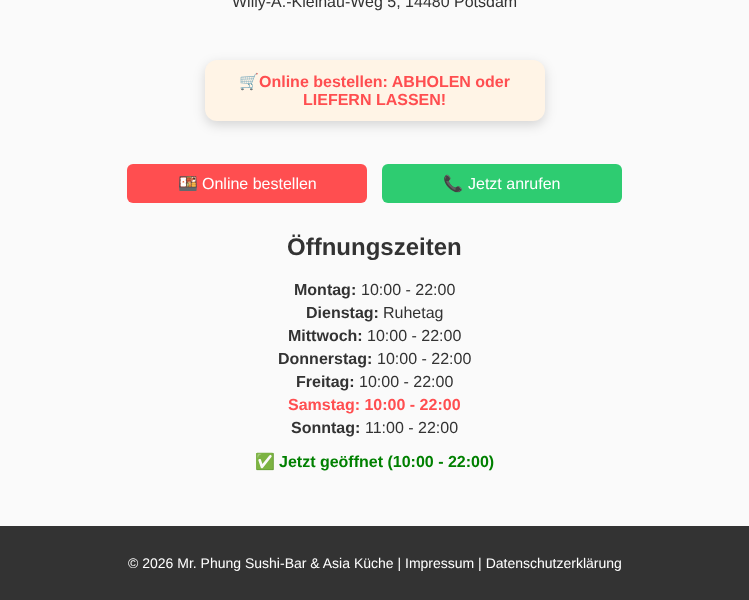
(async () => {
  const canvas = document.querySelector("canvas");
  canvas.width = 749;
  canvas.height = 600;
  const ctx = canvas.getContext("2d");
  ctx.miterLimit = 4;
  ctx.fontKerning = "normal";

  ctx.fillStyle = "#fafafa";
  ctx.fillRect(0, 0, 749, 600);
  ctx.fillStyle = "rgba(0, 0, 0, 0.15)";
  ctx.filter = "blur(6px)";
  ctx.beginPath();
  ctx.roundRect(205, 64, 340, 61, 12);
  ctx.fill();
  ctx.filter = "none";
  ctx.fillStyle = "#fff4e6";
  ctx.beginPath();
  ctx.roundRect(205, 60, 340, 61, 12);
  ctx.fill();
  ctx.fillStyle = "#ff4e50";
  ctx.beginPath();
  ctx.roundRect(127, 164, 240, 39, 6);
  ctx.fill();
  ctx.fillStyle = "#2ecc71";
  ctx.beginPath();
  ctx.roundRect(382, 164, 240, 39, 6);
  ctx.fill();
  ctx.fillStyle = "#333333";
  ctx.fillRect(0, 526, 749, 74);
  ctx.font = "16px Liberation Sans";
  ctx.fillText("Willy-A.-Kleinau-Weg 5, 14480 Potsdam", 232, 7);
  ctx.font = "bold 16px Noto Color Emoji";
  ctx.fillStyle = "#ff4e50";
  ctx.fillText("🛒", 239, 87);
  ctx.font = "bold 16px Liberation Sans";
  ctx.fillText("Online bestellen: ABHOLEN oder", 259, 87);
  ctx.fillText("LIEFERN LASSEN!", 303, 105);
  ctx.font = "16px Noto Color Emoji";
  ctx.fillStyle = "#ffffff";
  ctx.fillText("🍱", 178, 189);
  ctx.font = "16px Liberation Sans";
  ctx.fillText("Online bestellen", 202, 189);
  ctx.font = "16px Noto Color Emoji";
  ctx.fillText("📞", 443, 189);
  ctx.font = "16px Liberation Sans";
  ctx.fillText("Jetzt anrufen", 468, 189);
  ctx.font = "bold 24px Liberation Sans";
  ctx.fillStyle = "#333333";
  ctx.fillText("Öffnungszeiten", 287, 255);
  ctx.font = "bold 16px Liberation Sans";
  ctx.fillText("Montag:", 294, 295);
  ctx.font = "16px Liberation Sans";
  ctx.fillText("10:00 - 22:00", 361, 295);
  ctx.font = "bold 16px Liberation Sans";
  ctx.fillText("Dienstag:", 306, 318);
  ctx.font = "16px Liberation Sans";
  ctx.fillText("Ruhetag", 383, 318);
  ctx.font = "bold 16px Liberation Sans";
  ctx.fillText("Mittwoch:", 288, 341);
  ctx.font = "16px Liberation Sans";
  ctx.fillText("10:00 - 22:00", 367, 341);
  ctx.font = "bold 16px Liberation Sans";
  ctx.fillText("Donnerstag:", 278, 364);
  ctx.font = "16px Liberation Sans";
  ctx.fillText("10:00 - 22:00", 377, 364);
  ctx.font = "bold 16px Liberation Sans";
  ctx.fillText("Freitag:", 296, 387);
  ctx.font = "16px Liberation Sans";
  ctx.fillText("10:00 - 22:00", 359, 387);
  ctx.font = "bold 16px Liberation Sans";
  ctx.fillStyle = "#ff4e50";
  ctx.fillText("Samstag: 10:00 - 22:00", 288, 410);
  ctx.fillStyle = "#333333";
  ctx.fillText("Sonntag:", 291, 433);
  ctx.font = "16px Liberation Sans";
  ctx.fillText("11:00 - 22:00", 365, 433);
  ctx.font = "bold 16px Noto Color Emoji";
  ctx.fillStyle = "#008000";
  ctx.fillText("✅", 255, 467);
  ctx.font = "bold 16px Liberation Sans";
  ctx.fillText("Jetzt geöffnet (10:00 - 22:00)", 279, 467);
  ctx.font = "14px Liberation Sans";
  ctx.fillStyle = "#ffffff";
  ctx.fillText("© 2026 Mr. Phung Sushi-Bar & Asia Küche | Impressum | Datenschutzerklärung", 128, 568);
})();
